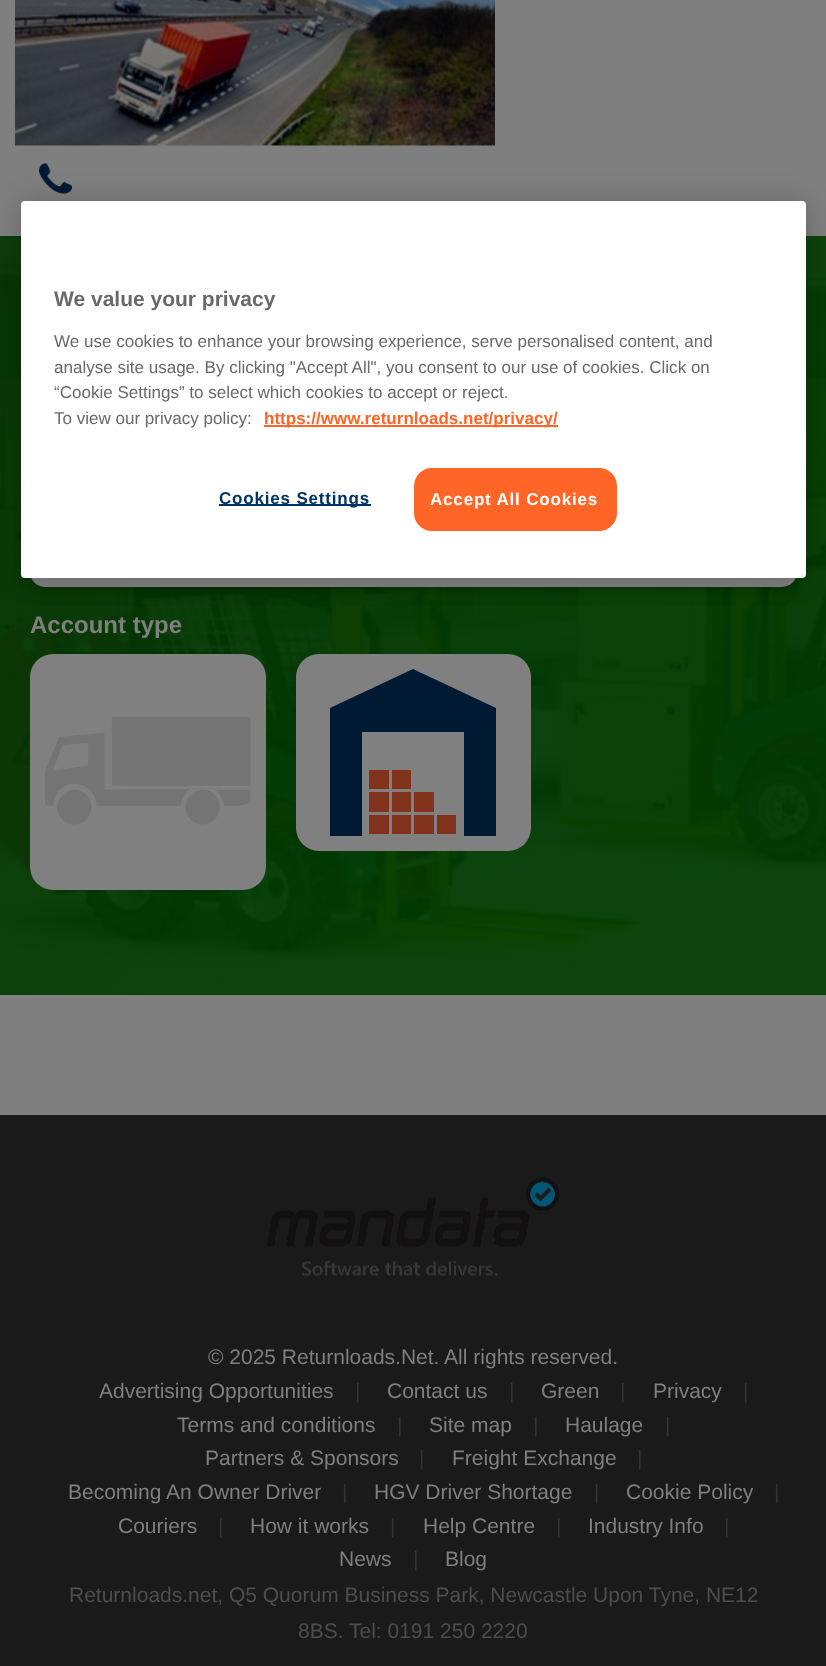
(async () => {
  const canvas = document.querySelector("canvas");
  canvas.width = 826;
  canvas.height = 1666;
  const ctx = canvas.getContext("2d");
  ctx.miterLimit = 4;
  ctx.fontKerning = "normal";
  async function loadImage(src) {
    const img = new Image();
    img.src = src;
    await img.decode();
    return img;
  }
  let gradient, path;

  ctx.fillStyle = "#7f7f7f";
  ctx.fillRect(0, 0, 826, 1666);
  ctx.drawImage(await loadImage("img/2.png"), 39, 163, 33, 31);
  ctx.fillStyle = "#001a33";
  ctx.fillRect(0, 994, 826, 1);
  ctx.drawImage(await loadImage("img/3.png"), 0, 236, 826, 759);
  gradient = ctx.createLinearGradient(17, 219, 810, 1011);
  gradient.addColorStop(0, "rgba(0, 51, 0, 0.9)");
  gradient.addColorStop(0.62, "rgba(0, 61, 0, 0.9)");
  ctx.fillStyle = gradient;
  ctx.fillRect(0, 236, 826, 759);
  ctx.fillStyle = "rgba(0, 0, 0, 0.2)";
  ctx.filter = "blur(7.5px)";
  ctx.beginPath();
  ctx.roundRect(30, 434, 767, 156, 15);
  ctx.fill();
  ctx.filter = "none";
  ctx.fillStyle = "#7f7f7f";
  ctx.beginPath();
  ctx.roundRect(30, 431, 767, 156, 15);
  ctx.fill();
  ctx.fillStyle = "rgba(0, 0, 0, 0.2)";
  ctx.filter = "blur(13.5px)";
  ctx.beginPath();
  ctx.roundRect(21, 201, 785, 377, 4);
  ctx.fill();
  ctx.filter = "none";
  ctx.fillStyle = "#ffffff";
  ctx.beginPath();
  ctx.roundRect(21, 201, 785, 377, 4);
  ctx.fill();
  ctx.fillStyle = "#ff6527";
  ctx.fillRect(264, 425, 294, 2);
  ctx.fillStyle = "#003366";
  ctx.fillRect(219, 504, 152, 2);
  ctx.fillStyle = "#ff6527";
  ctx.beginPath();
  ctx.roundRect(415, 469, 201, 61, 17);
  ctx.fill();
  ctx.strokeStyle = "#ff6527";
  ctx.lineWidth = 2;
  ctx.stroke();
  ctx.drawImage(await loadImage("img/1.png"), 15, 0, 480, 146);
  ctx.fillStyle = "#808080";
  ctx.beginPath();
  ctx.roundRect(30, 654, 236, 236, 23);
  ctx.fill();
  ctx.drawImage(await loadImage("img/4.png"), 45, 717, 206, 108);
  ctx.beginPath();
  ctx.roundRect(296, 654, 235, 197, 23);
  ctx.fill();
  for (const [x, y, w, h, color] of [
    [369, 770, 20, 19, "#80331a"],
    [369, 792, 20, 20, "#80331a"],
    [414, 792, 20, 20, "#80331a"],
    [369, 815, 20, 19, "#80331a"],
    [414, 815, 20, 19, "#80331a"],
    [392, 770, 19, 19, "#80331a"],
    [392, 792, 19, 20, "#80331a"],
    [392, 815, 19, 19, "#80331a"],
    [437, 815, 19, 19, "#80331a"],
  ]) {
    ctx.fillStyle = color;
    ctx.fillRect(x, y, w, h);
  }
  ctx.fillStyle = "#001a33";
  path = new Path2D("M413 669L330 708V836H362V732H464V836H496V708Z");
  ctx.fill(path, "evenodd");
  ctx.fillStyle = "#1a1a1a";
  ctx.fillRect(0, 1115, 826, 551);
  ctx.drawImage(await loadImage("img/5.png"), 266, 1177, 293, 99);
  ctx.font = "bold 21px Liberation Sans";
  ctx.fillStyle = "#696969";
  ctx.fillText("We value your privacy", 54, 306);
  ctx.font = "17.05px Liberation Sans";
  for (const [text, x, y] of [
    ["We use cookies to enhance your browsing experience, serve personalised content, and", 54, 347],
    ["analyse site usage. By clicking \"Accept All\", you consent to our use of cookies. Click on", 54, 373],
    ["“Cookie Settings” to select which cookies to accept or reject.", 54, 398],
    ["To view our privacy policy:", 54, 424],
  ]) {
    ctx.fillText(text, x, y);
  }
  ctx.font = "bold 17.05px Liberation Sans";
  ctx.fillStyle = "#ff6527";
  ctx.fillText("https://www.returnloads.net/privacy/", 264, 424);
  ctx.letterSpacing = "0.8px";
  ctx.fillStyle = "#003366";
  ctx.fillText("Cookies Settings", 219, 504);
  ctx.fillStyle = "#ffffff";
  ctx.fillText("Accept All Cookies", 430, 505);
  ctx.letterSpacing = "0px";
  ctx.font = "bold 24px Liberation Sans";
  ctx.fillStyle = "#7f7f7f";
  ctx.fillText("Account type", 30, 633);
  ctx.font = "21px Liberation Sans";
  ctx.fillText("© 2025 Returnloads.Net. All rights reserved.", 208, 1364);
  ctx.fillText("Advertising Opportunities", 99, 1398);
  ctx.fillStyle = "#333333";
  ctx.fillText("|", 355, 1398);
  ctx.fillStyle = "#7f7f7f";
  ctx.fillText("Contact us", 387, 1398);
  ctx.fillStyle = "#333333";
  ctx.fillText("|", 509, 1398);
  ctx.fillStyle = "#7f7f7f";
  ctx.fillText("Green", 541, 1398);
  ctx.fillStyle = "#333333";
  ctx.fillText("|", 620, 1398);
  ctx.fillStyle = "#7f7f7f";
  ctx.fillText("Privacy", 653, 1398);
  ctx.fillStyle = "#333333";
  ctx.fillText("|", 743, 1398);
  ctx.fillStyle = "#7f7f7f";
  ctx.fillText("Terms and conditions", 177, 1432);
  ctx.fillStyle = "#333333";
  ctx.fillText("|", 397, 1432);
  ctx.fillStyle = "#7f7f7f";
  ctx.fillText("Site map", 429, 1432);
  ctx.fillStyle = "#333333";
  ctx.fillText("|", 533, 1432);
  ctx.fillStyle = "#7f7f7f";
  ctx.fillText("Haulage", 565, 1432);
  ctx.fillStyle = "#333333";
  ctx.fillText("|", 665, 1432);
  ctx.fillStyle = "#7f7f7f";
  ctx.fillText("Partners & Sponsors", 205, 1465);
  ctx.fillStyle = "#333333";
  ctx.fillText("|", 419, 1465);
  ctx.fillStyle = "#7f7f7f";
  ctx.fillText("Freight Exchange", 452, 1465);
  ctx.fillStyle = "#333333";
  ctx.fillText("|", 637, 1465);
  ctx.fillStyle = "#7f7f7f";
  ctx.fillText("Becoming An Owner Driver", 68, 1499);
  ctx.fillStyle = "#333333";
  ctx.fillText("|", 342, 1499);
  ctx.fillStyle = "#7f7f7f";
  ctx.fillText("HGV Driver Shortage", 374, 1499);
  ctx.fillStyle = "#333333";
  ctx.fillText("|", 594, 1499);
  ctx.fillStyle = "#7f7f7f";
  ctx.fillText("Cookie Policy", 626, 1499);
  ctx.fillStyle = "#333333";
  ctx.fillText("|", 774, 1499);
  ctx.fillStyle = "#7f7f7f";
  ctx.fillText("Couriers", 118, 1533);
  ctx.fillStyle = "#333333";
  ctx.fillText("|", 218, 1533);
  ctx.fillStyle = "#7f7f7f";
  ctx.fillText("How it works", 250, 1533);
  ctx.fillStyle = "#333333";
  ctx.fillText("|", 390, 1533);
  ctx.fillStyle = "#7f7f7f";
  ctx.fillText("Help Centre", 423, 1533);
  ctx.fillStyle = "#333333";
  ctx.fillText("|", 556, 1533);
  ctx.fillStyle = "#7f7f7f";
  ctx.fillText("Industry Info", 588, 1533);
  ctx.fillStyle = "#333333";
  ctx.fillText("|", 724, 1533);
  ctx.fillStyle = "#7f7f7f";
  ctx.fillText("News", 339, 1566);
  ctx.fillStyle = "#333333";
  ctx.fillText("|", 413, 1566);
  ctx.fillStyle = "#7f7f7f";
  ctx.fillText("Blog", 445, 1566);
  ctx.fillStyle = "#4d4d4d";
  ctx.fillText("Returnloads.net, Q5 Quorum Business Park, Newcastle Upon Tyne, NE12", 69, 1602);
  ctx.fillText("8BS. Tel: 0191 250 2220", 298, 1638);
})();
